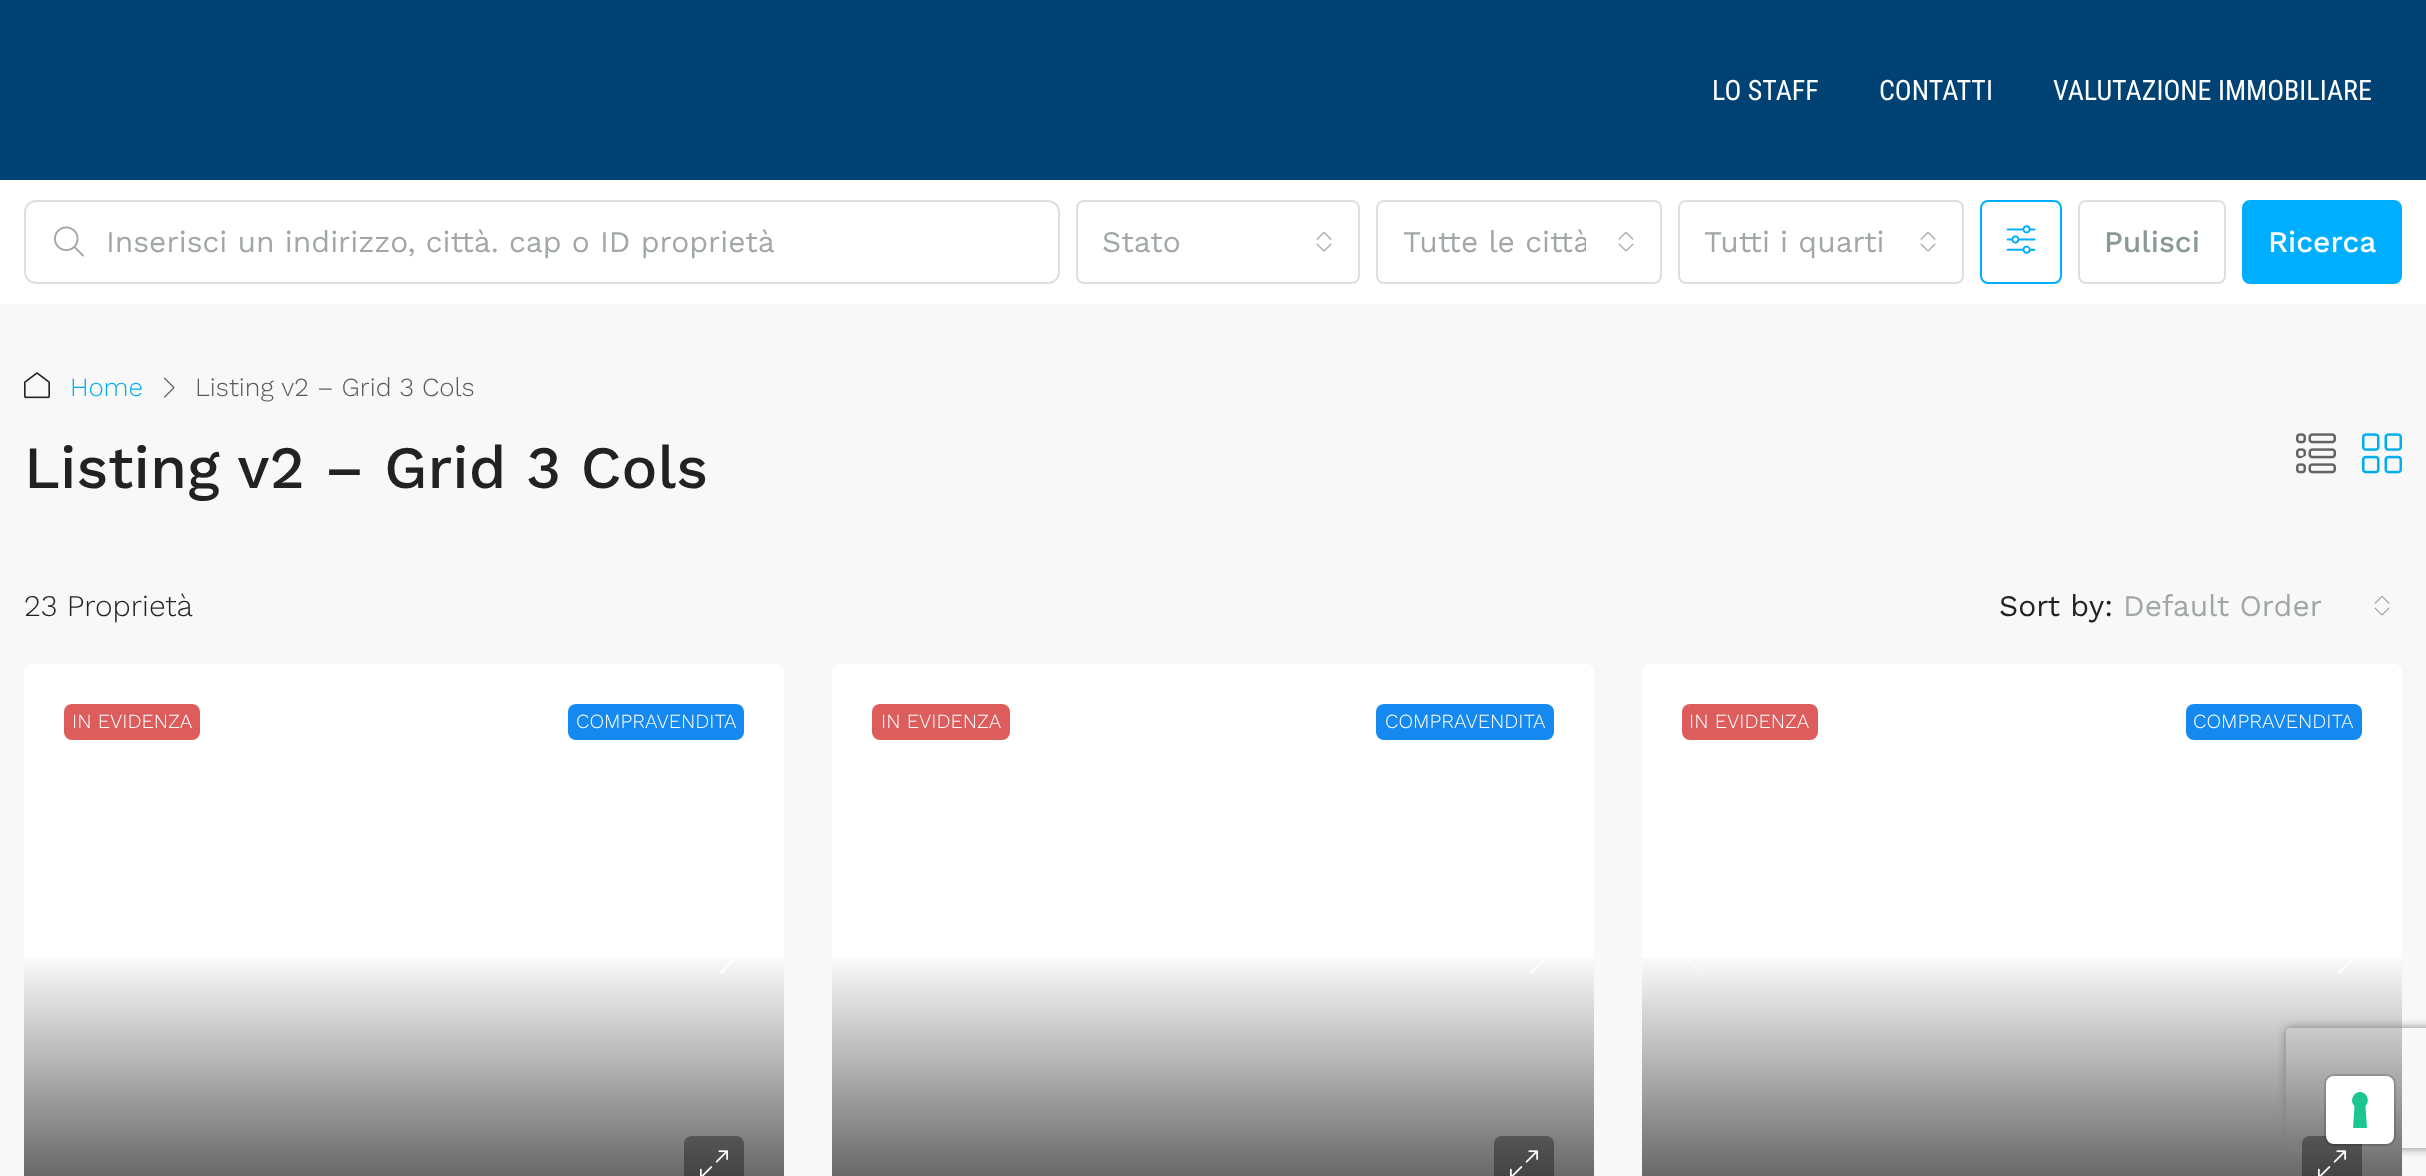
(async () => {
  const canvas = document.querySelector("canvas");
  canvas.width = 2426;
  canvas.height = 1176;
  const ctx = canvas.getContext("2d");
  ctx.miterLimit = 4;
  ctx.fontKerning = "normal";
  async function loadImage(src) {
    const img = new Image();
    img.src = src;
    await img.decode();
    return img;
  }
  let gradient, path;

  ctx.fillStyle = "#f8f8f8";
  ctx.fillRect(0, 0, 2426, 1176);
  ctx.fillStyle = "#004274";
  ctx.fillRect(0, 0, 2426, 180);
  ctx.fillStyle = "#ffffff";
  ctx.fillRect(0, 180, 2426, 124);
  ctx.beginPath();
  ctx.roundRect(25, 201, 1034, 82, 11);
  ctx.strokeStyle = "#dce0e0";
  ctx.lineWidth = 2;
  ctx.stroke();
  ctx.drawImage(await loadImage("img/1.png"), 54, 226, 30, 31);
  ctx.beginPath();
  ctx.roundRect(1077, 201, 282, 82, 7);
  ctx.stroke();
  ctx.drawImage(await loadImage("img/2.png"), 1316, 232, 16, 20);
  ctx.beginPath();
  ctx.roundRect(1377, 201, 284, 82, 7);
  ctx.stroke();
  ctx.drawImage(await loadImage("img/2.png"), 1618, 232, 16, 20);
  ctx.beginPath();
  ctx.roundRect(1679, 201, 284, 82, 7);
  ctx.stroke();
  ctx.drawImage(await loadImage("img/2.png"), 1920, 232, 16, 20);
  ctx.beginPath();
  ctx.roundRect(1981, 201, 80, 82, 7);
  ctx.strokeStyle = "#00aeff";
  ctx.stroke();
  ctx.drawImage(await loadImage("img/3.png"), 2006, 225, 30, 29);
  ctx.beginPath();
  ctx.roundRect(2079, 201, 146, 82, 7);
  ctx.strokeStyle = "#dce0e0";
  ctx.stroke();
  ctx.fillStyle = "#00aeff";
  ctx.beginPath();
  ctx.roundRect(2243, 201, 158, 82, 7);
  ctx.fill();
  ctx.strokeStyle = "#00aeff";
  ctx.stroke();
  ctx.drawImage(await loadImage("img/4.png"), 24, 372, 26, 27);
  ctx.drawImage(await loadImage("img/5.png"), 164, 377, 11, 21);
  ctx.drawImage(await loadImage("img/6.png"), 2296, 433, 40, 41);
  ctx.drawImage(await loadImage("img/7.png"), 2362, 433, 40, 41);
  ctx.drawImage(await loadImage("img/8.png"), 2374, 596, 16, 20);
  ctx.fillStyle = "#ffffff";
  ctx.beginPath();
  ctx.roundRect(24, 664, 760, 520, 8);
  ctx.fill();
  ctx.fillStyle = "#dd5d5d";
  ctx.beginPath();
  ctx.roundRect(64, 704, 136, 36, 8);
  ctx.fill();
  ctx.fillStyle = "#1589ef";
  ctx.beginPath();
  ctx.roundRect(568, 704, 176, 36, 8);
  ctx.fill();
  gradient = ctx.createLinearGradient(405, 664, 405, 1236);
  gradient.addColorStop(0, "rgba(0, 0, 0, 0)");
  gradient.addColorStop(0.5, "rgba(0, 0, 0, 0)");
  gradient.addColorStop(1, "rgba(0, 0, 0, 0.75)");
  ctx.fillStyle = gradient;
  ctx.fillRect(24, 958, 760, 218);
  ctx.fillStyle = "rgba(255, 255, 255, 0.25)";
  path = new Path2D("M82 974C81 974 72 965 71 963C57 949 55 953 67 941L82 926C83 926 84 927 84 928C84 929 65 947 62 950L84 972C84 973 84 974 82 974Z");
  ctx.fill(path);
  ctx.drawImage(await loadImage("img/9.png"), 719, 958, 18, 16);
  ctx.fillStyle = "rgba(0, 0, 0, 0.35)";
  ctx.beginPath();
  ctx.roundRect(684, 1136, 60, 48, 8);
  ctx.fill();
  ctx.drawImage(await loadImage("img/10.png"), 700, 1150, 28, 26);
  ctx.fillStyle = "#ffffff";
  ctx.beginPath();
  ctx.roundRect(832, 664, 762, 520, 8);
  ctx.fill();
  ctx.fillStyle = "#dd5d5d";
  ctx.beginPath();
  ctx.roundRect(872, 704, 138, 36, 8);
  ctx.fill();
  ctx.fillStyle = "#1589ef";
  ctx.beginPath();
  ctx.roundRect(1376, 704, 178, 36, 8);
  ctx.fill();
  gradient = ctx.createLinearGradient(1213, 664, 1213, 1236);
  gradient.addColorStop(0, "rgba(0, 0, 0, 0)");
  gradient.addColorStop(0.5, "rgba(0, 0, 0, 0)");
  gradient.addColorStop(1, "rgba(0, 0, 0, 0.75)");
  ctx.fillStyle = gradient;
  ctx.fillRect(832, 958, 762, 218);
  ctx.fillStyle = "rgba(255, 255, 255, 0.25)";
  path = new Path2D("M890 974C889 974 880 965 879 963C865 949 863 953 875 941L890 926C891 926 892 927 892 928C892 929 873 947 870 950L892 972C892 973 892 974 890 974Z");
  ctx.fill(path);
  ctx.drawImage(await loadImage("img/9.png"), 1529, 958, 18, 16);
  ctx.fillStyle = "rgba(0, 0, 0, 0.35)";
  ctx.beginPath();
  ctx.roundRect(1494, 1136, 60, 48, 8);
  ctx.fill();
  ctx.drawImage(await loadImage("img/10.png"), 1510, 1150, 28, 26);
  ctx.fillStyle = "#ffffff";
  ctx.beginPath();
  ctx.roundRect(1642, 664, 760, 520, 8);
  ctx.fill();
  ctx.fillStyle = "#dd5d5d";
  ctx.beginPath();
  ctx.roundRect(1682, 704, 136, 36, 8);
  ctx.fill();
  ctx.fillStyle = "#1589ef";
  ctx.beginPath();
  ctx.roundRect(2186, 704, 176, 36, 8);
  ctx.fill();
  gradient = ctx.createLinearGradient(2023, 664, 2023, 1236);
  gradient.addColorStop(0, "rgba(0, 0, 0, 0)");
  gradient.addColorStop(0.5, "rgba(0, 0, 0, 0)");
  gradient.addColorStop(1, "rgba(0, 0, 0, 0.75)");
  ctx.fillStyle = gradient;
  ctx.fillRect(1642, 958, 760, 218);
  ctx.fillStyle = "rgba(255, 255, 255, 0.25)";
  path = new Path2D("M1700 974C1699 974 1690 965 1689 963C1675 949 1673 953 1685 941L1700 926C1701 926 1702 927 1702 928C1702 929 1683 947 1680 950L1702 972C1702 973 1702 974 1700 974Z");
  ctx.fill(path);
  ctx.drawImage(await loadImage("img/9.png"), 2337, 958, 18, 16);
  ctx.save();
  path = new Path2D("M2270 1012H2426V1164H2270ZM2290 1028H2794C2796 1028 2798 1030 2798 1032V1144C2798 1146 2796 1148 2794 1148H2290C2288 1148 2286 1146 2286 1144V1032C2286 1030 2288 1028 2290 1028Z");
  ctx.clip(path, "evenodd");
  ctx.fillStyle = "#808080";
  ctx.filter = "blur(5px)";
  ctx.beginPath();
  ctx.roundRect(2286, 1028, 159, 120, 4);
  ctx.fill();
  ctx.filter = "none";
  ctx.restore();
  ctx.fillStyle = "rgba(0, 0, 0, 0.35)";
  ctx.beginPath();
  ctx.roundRect(2302, 1136, 60, 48, 8);
  ctx.fill();
  ctx.drawImage(await loadImage("img/11.png"), 2318, 1150, 28, 26);
  ctx.beginPath();
  ctx.roundRect(2325, 1075, 70, 70, 9);
  ctx.strokeStyle = "rgba(0, 0, 0, 0.15)";
  ctx.stroke();
  ctx.fillStyle = "#ffffff";
  ctx.beginPath();
  ctx.roundRect(2326, 1076, 68, 68, 8);
  ctx.fill();
  ctx.fillStyle = "#1cc691";
  path = new Path2D("M2360 1092C2367 1092 2370.5 1101.5 2365.5 1106L2367 1128H2353L2354.5 1106C2349.5 1101.5 2353 1092 2360 1092Z");
  ctx.fill(path, "evenodd");
  ctx.font = "28px Roboto Condensed";
  ctx.fillStyle = "#ffffff";
  for (const [text, x, y] of [
    ["LO STAFF", 1712, 100],
    ["CONTATTI", 1879, 100],
    ["VALUTAZIONE IMMOBILIARE", 2053, 100],
  ]) {
    ctx.fillText(text, x, y);
  }
  ctx.font = "30px Work Sans";
  ctx.fillStyle = "#a1a7a8";
  ctx.fillText("Inserisci un indirizzo, città. cap o ID proprietà", 106, 252);
  ctx.fillText("Stato", 1102, 252);
  ctx.save();
  ctx.beginPath();
  ctx.rect(1402, 202, 184, 80);
  ctx.clip();
  ctx.fillText("Tutte le città", 1403, 252);
  ctx.restore();
  ctx.fillText("Tutti i quarti", 1704, 252);
  ctx.font = "500 30px Work Sans";
  ctx.fillStyle = "#8b9898";
  ctx.fillText("Pulisci", 2104, 252);
  ctx.fillStyle = "#ffffff";
  ctx.fillText("Ricerca", 2268, 252);
  ctx.font = "300 26px Work Sans";
  ctx.fillStyle = "#00aeef";
  ctx.fillText("Home", 70, 396);
  ctx.fillStyle = "#575a5d";
  ctx.fillText("Listing v2 – Grid 3 Cols", 195, 396);
  ctx.font = "500 60px Work Sans";
  ctx.fillStyle = "#222222";
  ctx.fillText("Listing v2 – Grid 3 Cols", 24, 488);
  ctx.font = "300 30px Work Sans";
  ctx.fillText("23 Proprietà", 24, 616);
  ctx.font = "30px Work Sans";
  ctx.fillText("Sort by:", 1999, 616);
  ctx.fillStyle = "#a1a7a8";
  ctx.fillText("Default Order", 2123, 616);
  ctx.font = "300 20px Work Sans";
  ctx.fillStyle = "#ffffff";
  for (const [text, x, y] of [
    ["IN EVIDENZA", 72, 728],
    ["COMPRAVENDITA", 576, 728],
    ["IN EVIDENZA", 881, 728],
    ["COMPRAVENDITA", 1385, 728],
    ["IN EVIDENZA", 1689, 728],
    ["COMPRAVENDITA", 2193, 728],
  ]) {
    ctx.fillText(text, x, y);
  }
})();
